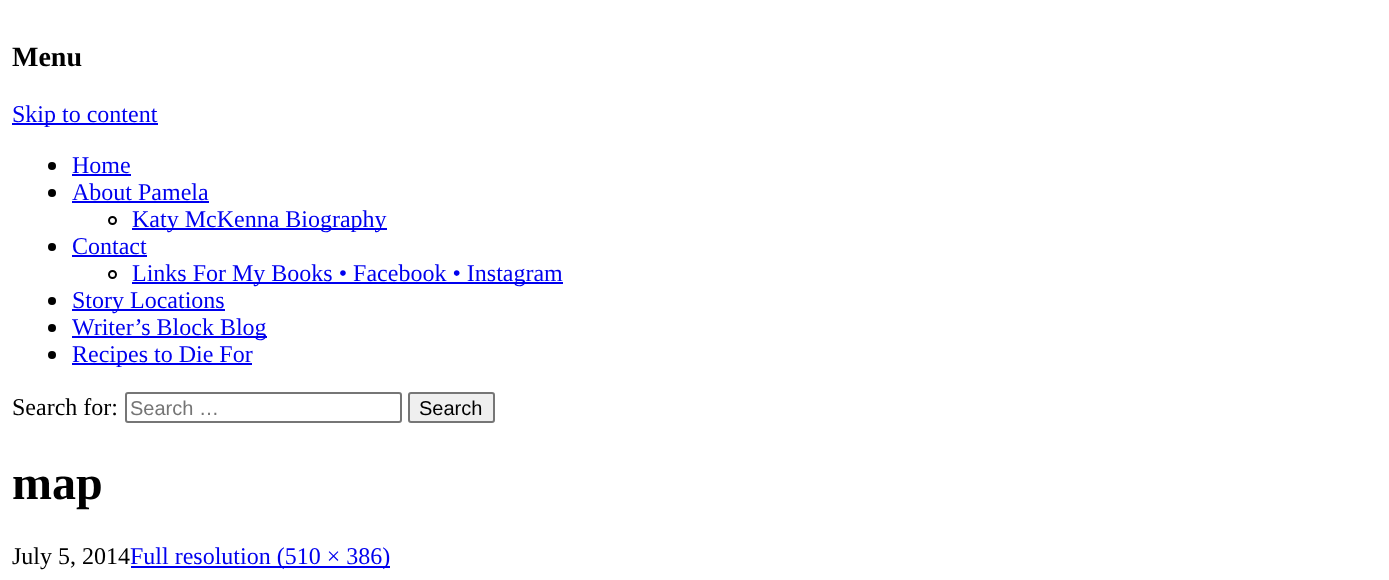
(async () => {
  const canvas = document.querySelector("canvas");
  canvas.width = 1389;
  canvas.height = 580;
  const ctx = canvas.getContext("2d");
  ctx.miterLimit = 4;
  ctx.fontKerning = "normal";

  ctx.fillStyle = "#ffffff";
  ctx.fillRect(0, 0, 1389, 580);
  ctx.fillStyle = "#0000ee";
  ctx.fillRect(12, 123, 146, 2);
  ctx.fillStyle = "#000000";
  ctx.beginPath();
  ctx.arc(52, 166, 4, 0, Math.PI * 2);
  ctx.fill();
  ctx.fillStyle = "#0000ee";
  ctx.fillRect(72, 174, 59, 2);
  ctx.fillStyle = "#000000";
  ctx.beginPath();
  ctx.arc(52, 193, 4, 0, Math.PI * 2);
  ctx.fill();
  ctx.fillStyle = "#0000ee";
  ctx.fillRect(72, 201, 137, 2);
  ctx.beginPath();
  ctx.arc(112.5, 220.5, 3.5, 0, Math.PI * 2);
  ctx.strokeStyle = "#000000";
  ctx.lineWidth = 2;
  ctx.stroke();
  ctx.fillRect(132, 228, 255, 2);
  ctx.fillStyle = "#000000";
  ctx.beginPath();
  ctx.arc(52, 247, 4, 0, Math.PI * 2);
  ctx.fill();
  ctx.fillStyle = "#0000ee";
  ctx.fillRect(72, 255, 75, 2);
  ctx.beginPath();
  ctx.arc(112.5, 274.5, 3.5, 0, Math.PI * 2);
  ctx.stroke();
  ctx.fillRect(132, 282, 431, 2);
  ctx.fillStyle = "#000000";
  ctx.beginPath();
  ctx.arc(52, 301, 4, 0, Math.PI * 2);
  ctx.fill();
  ctx.fillStyle = "#0000ee";
  ctx.fillRect(72, 309, 153, 2);
  ctx.fillStyle = "#000000";
  ctx.beginPath();
  ctx.arc(52, 328, 4, 0, Math.PI * 2);
  ctx.fill();
  ctx.fillStyle = "#0000ee";
  ctx.fillRect(72, 336, 195, 2);
  ctx.fillStyle = "#000000";
  ctx.beginPath();
  ctx.arc(52, 355, 4, 0, Math.PI * 2);
  ctx.fill();
  ctx.fillStyle = "#0000ee";
  ctx.fillRect(72, 363, 180, 2);
  ctx.beginPath();
  ctx.roundRect(126, 393, 275, 29, 2);
  ctx.strokeStyle = "#767676";
  ctx.stroke();
  ctx.fillStyle = "#efefef";
  ctx.beginPath();
  ctx.roundRect(409, 393, 85, 29, 2);
  ctx.fill();
  ctx.stroke();
  ctx.fillStyle = "#0000ee";
  ctx.fillRect(131, 566, 259, 2);
  ctx.font = "bold 28px Liberation Serif";
  ctx.fillStyle = "#000000";
  ctx.fillText("Menu", 12, 66);
  ctx.font = "24px Liberation Serif";
  ctx.fillStyle = "#0000ee";
  for (const [text, x, y] of [
    ["Skip to content", 12, 122],
    ["Home", 72, 173],
    ["About Pamela", 72, 200],
    ["Katy McKenna Biography", 132, 227],
    ["Contact", 72, 254],
    ["Links For My Books • Facebook • Instagram", 132, 281],
    ["Story Locations", 72, 308],
    ["Writer’s Block Blog", 72, 335],
    ["Recipes to Die For", 72, 362],
  ]) {
    ctx.fillText(text, x, y);
  }
  ctx.fillStyle = "#000000";
  ctx.fillText("Search for:", 12, 415);
  ctx.font = "20px Liberation Sans";
  ctx.fillStyle = "#757575";
  ctx.fillText("Search …", 130, 415);
  ctx.fillStyle = "#000000";
  ctx.fillText("Search", 419, 415);
  ctx.font = "bold 48px Liberation Serif";
  ctx.fillText("map", 12, 499);
  ctx.font = "24px Liberation Serif";
  ctx.fillText("July 5, 2014", 12, 564);
  ctx.fillStyle = "#0000ee";
  ctx.fillText("Full resolution (510 × 386)", 130, 564);
})();
